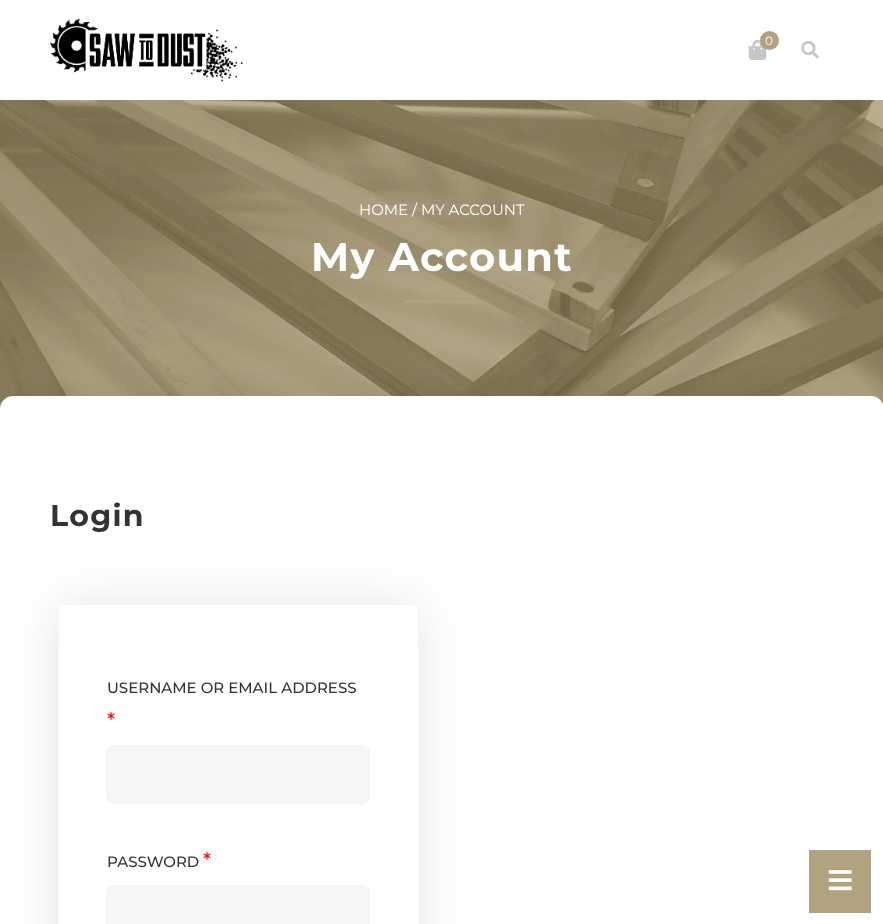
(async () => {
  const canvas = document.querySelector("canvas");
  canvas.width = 883;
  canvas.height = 924;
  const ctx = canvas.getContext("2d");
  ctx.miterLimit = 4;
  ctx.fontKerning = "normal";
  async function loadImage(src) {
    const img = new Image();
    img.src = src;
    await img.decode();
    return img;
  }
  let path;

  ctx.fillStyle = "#ffffff";
  ctx.fillRect(0, 0, 883, 924);
  ctx.drawImage(await loadImage("img/1.png"), 50, 18, 193, 64);
  ctx.drawImage(await loadImage("img/2.png"), 748, 40, 19, 20);
  ctx.fillStyle = "#b1a37f";
  ctx.beginPath();
  ctx.arc(769.5, 40.5, 9.5, 0, Math.PI * 2);
  ctx.fill();
  ctx.drawImage(await loadImage("img/3.png"), 801, 41, 18, 18);
  ctx.drawImage(await loadImage("img/5.png"), 0, 100, 883, 309);
  ctx.fillStyle = "rgba(0, 0, 0, 0.07)";
  ctx.filter = "blur(15.5px)";
  ctx.beginPath();
  ctx.rect(35, 394, 814, 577);
  ctx.fill();
  ctx.filter = "none";
  ctx.fillStyle = "#ffffff";
  path = new Path2D("M13 396H871C878 396 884 402 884 409V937H0V409C0 402 6 396 13 396Z");
  ctx.fill(path);
  ctx.fillStyle = "#b1a37f";
  ctx.fillRect(809, 850, 62, 63);
  ctx.drawImage(await loadImage("img/4.png"), 828, 870, 24, 21);
  ctx.fillRect(405, 300, 75, 3);
  ctx.save();
  path = new Path2D("M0 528H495V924H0ZM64 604H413C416.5 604 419 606.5 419 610V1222C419 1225.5 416.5 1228 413 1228H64C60.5 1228 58 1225.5 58 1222V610C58 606.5 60.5 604 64 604Z");
  ctx.clip(path, "evenodd");
  ctx.fillStyle = "rgba(0, 0, 0, 0.1)";
  ctx.filter = "blur(25px)";
  ctx.beginPath();
  ctx.roundRect(58, 604, 361, 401, 6);
  ctx.fill();
  ctx.filter = "none";
  ctx.restore();
  ctx.beginPath();
  ctx.roundRect(58.5, 604.5, 360, 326, 5.5);
  ctx.strokeStyle = "#f5f5f5";
  ctx.stroke();
  ctx.fillStyle = "#f5f5f5";
  ctx.beginPath();
  ctx.roundRect(106, 745, 264, 59, 8);
  ctx.fill();
  ctx.beginPath();
  ctx.roundRect(106, 885, 264, 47, 8);
  ctx.fill();
  ctx.font = "12px Montserrat";
  ctx.fillStyle = "#ffffff";
  ctx.fillText("0", 765, 45);
  ctx.font = "15px Montserrat";
  ctx.fillText("HOME / MY ACCOUNT", 359, 215);
  ctx.letterSpacing = "1.25px";
  ctx.font = "bold 40px Montserrat";
  ctx.fillText("My Account", 311, 271);
  ctx.font = "bold 30px Montserrat";
  ctx.fillStyle = "#333333";
  ctx.fillText("Login", 50, 526);
  ctx.letterSpacing = "0px";
  ctx.font = "500 15px Montserrat";
  ctx.fillText("USERNAME OR EMAIL ADDRESS", 107, 693);
  ctx.font = "500 20px Montserrat";
  ctx.fillStyle = "#fc0000";
  ctx.fillText("*", 107, 727);
  ctx.font = "500 15px Montserrat";
  ctx.fillStyle = "#333333";
  ctx.fillText("PASSWORD", 107, 867);
  ctx.font = "500 20px Montserrat";
  ctx.fillStyle = "#fc0000";
  ctx.fillText("*", 203, 867);
})();
